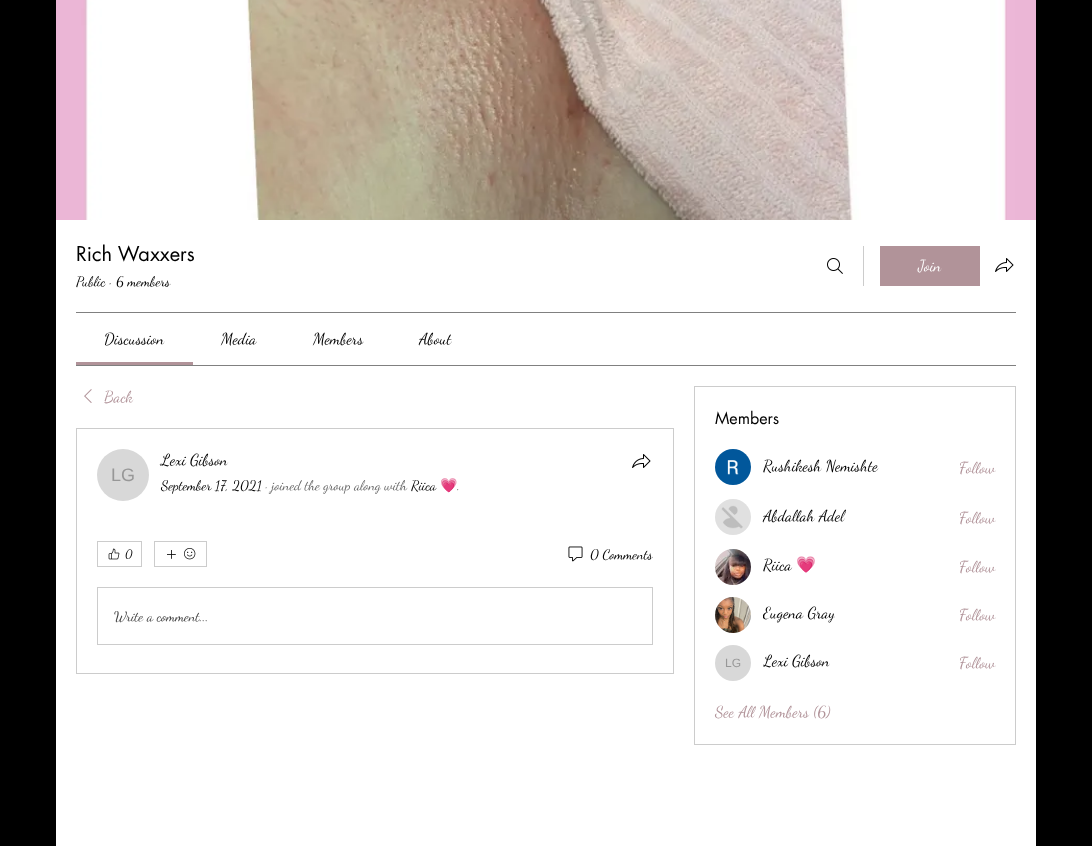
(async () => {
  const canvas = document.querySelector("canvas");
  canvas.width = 1092;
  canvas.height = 846;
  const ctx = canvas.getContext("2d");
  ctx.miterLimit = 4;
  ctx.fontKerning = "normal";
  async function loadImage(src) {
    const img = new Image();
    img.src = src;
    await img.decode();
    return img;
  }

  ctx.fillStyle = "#000000";
  ctx.fillRect(0, 0, 1092, 846);
  ctx.fillStyle = "#ffffff";
  ctx.fillRect(56, 220, 980, 626);
  ctx.drawImage(await loadImage("img/1.png"), 56, 0, 980, 220);
  ctx.drawImage(await loadImage("img/2.png"), 827, 258, 16, 16);
  ctx.fillStyle = "#cccccc";
  ctx.fillRect(863, 246, 1, 40);
  ctx.fillStyle = "#b19399";
  ctx.fillRect(880, 246, 100, 40);
  ctx.drawImage(await loadImage("img/3.png"), 995, 258, 19, 14);
  for (const [x, y, w, h, color] of [
    [76, 312, 940, 1, "#808080"],
    [76, 365, 940, 1, "#808080"],
    [76, 362, 117, 3, "#b19399"],
  ]) {
    ctx.fillStyle = color;
    ctx.fillRect(x, y, w, h);
  }
  ctx.drawImage(await loadImage("img/4.png"), 84, 389, 8, 14);
  ctx.strokeStyle = "#cccccc";
  ctx.strokeRect(76.5, 428.5, 597, 245);
  ctx.drawImage(await loadImage("img/3.png"), 632, 454, 19, 14);
  ctx.fillStyle = "#d8d8d8";
  ctx.beginPath();
  ctx.arc(123, 475, 26, 0, Math.PI * 2);
  ctx.fill();
  ctx.strokeRect(97.5, 541.5, 44, 25);
  ctx.drawImage(await loadImage("img/5.png"), 108, 548, 12, 12);
  ctx.strokeRect(154.5, 541.5, 52, 25);
  ctx.drawImage(await loadImage("img/6.png"), 167, 550, 9, 9);
  ctx.drawImage(await loadImage("img/7.png"), 184, 548, 12, 12);
  ctx.drawImage(await loadImage("img/8.png"), 568, 546, 15, 16);
  ctx.strokeRect(97.5, 587.5, 555, 57);
  ctx.strokeRect(694.5, 386.5, 321, 358);
  ctx.drawImage(await loadImage("img/9.png"), 715, 449, 36, 36);
  ctx.drawImage(await loadImage("img/10.png"), 715, 499, 36, 36);
  ctx.drawImage(await loadImage("img/11.png"), 715, 549, 36, 36);
  ctx.drawImage(await loadImage("img/12.png"), 715, 597, 36, 36);
  ctx.beginPath();
  ctx.arc(733, 663, 18, 0, Math.PI * 2);
  ctx.fill();
  ctx.font = "20px futura";
  ctx.fillStyle = "#000000";
  ctx.fillText("Rich Waxxers", 76, 261);
  ctx.font = "14px Dancing Script";
  for (const [text, x, y] of [
    ["Public", 76, 286],
    ["·", 109, 286],
    ["6 members", 116, 286],
  ]) {
    ctx.fillText(text, x, y);
  }
  ctx.font = "16px Dancing Script";
  ctx.fillStyle = "#ffffff";
  ctx.fillText("Join", 918, 271);
  ctx.fillStyle = "#000000";
  for (const [text, x, y] of [
    ["Discussion", 104, 344],
    ["Media", 221, 344],
    ["Members", 313, 344],
    ["About", 419, 344],
  ]) {
    ctx.fillText(text, x, y);
  }
  ctx.fillStyle = "#b19399";
  ctx.fillText("Back", 104, 402);
  ctx.fillStyle = "#000000";
  ctx.fillText("Lexi Gibson", 161, 465);
  ctx.font = "14px Dancing Script";
  ctx.fillText("September 17, 2021", 161, 490);
  ctx.fillStyle = "#666666";
  ctx.fillText("· joined the group along with", 265, 490);
  ctx.fillStyle = "#000000";
  ctx.fillText("Riica", 411, 490);
  ctx.font = "14px Noto Color Emoji";
  ctx.fillText("💗", 440, 490);
  ctx.font = "14px Dancing Script";
  ctx.fillStyle = "#666666";
  ctx.fillText(".", 457, 490);
  ctx.font = "18px Liberation Sans";
  ctx.fillStyle = "#979797";
  ctx.fillText("LG", 111, 481);
  ctx.font = "12px Dancing Script";
  ctx.fillStyle = "#000000";
  ctx.fillText("0", 125, 558);
  ctx.font = "14px Dancing Script";
  ctx.fillText("0 Comments", 590, 559);
  ctx.fillStyle = "#404040";
  ctx.fillText("Write a comment...", 114, 621);
  ctx.font = "16px futura";
  ctx.fillStyle = "#000000";
  ctx.fillText("Members", 715, 424);
  ctx.font = "16px Dancing Script";
  ctx.fillText("Rushikesh Nemishte", 763, 471);
  ctx.fillStyle = "#b19399";
  ctx.fillText("Follow", 959, 473);
  ctx.fillStyle = "#000000";
  ctx.fillText("Abdallah Adel", 763, 521);
  ctx.fillStyle = "#b19399";
  ctx.fillText("Follow", 959, 523);
  ctx.fillStyle = "#000000";
  ctx.fillText("Riica", 763, 570);
  ctx.font = "16px Noto Color Emoji";
  ctx.fillText("💗", 796, 570);
  ctx.font = "16px Dancing Script";
  ctx.fillStyle = "#b19399";
  ctx.fillText("Follow", 959, 572);
  ctx.save();
  ctx.beginPath();
  ctx.rect(763, 602, 72, 23);
  ctx.clip();
  ctx.fillStyle = "#000000";
  ctx.fillText("Eugena Gray", 763, 618);
  ctx.restore();
  ctx.fillText("Follow", 959, 620);
  ctx.font = "12px Liberation Sans";
  ctx.fillStyle = "#979797";
  ctx.fillText("LG", 725, 667);
  ctx.save();
  ctx.beginPath();
  ctx.rect(763, 650, 67, 23);
  ctx.clip();
  ctx.font = "16px Dancing Script";
  ctx.fillStyle = "#000000";
  ctx.fillText("Lexi Gibson", 763, 666);
  ctx.restore();
  ctx.font = "16px Dancing Script";
  ctx.fillStyle = "#b19399";
  ctx.fillText("Follow", 959, 668);
  ctx.fillText("See All Members (6)", 715, 717);
})();
